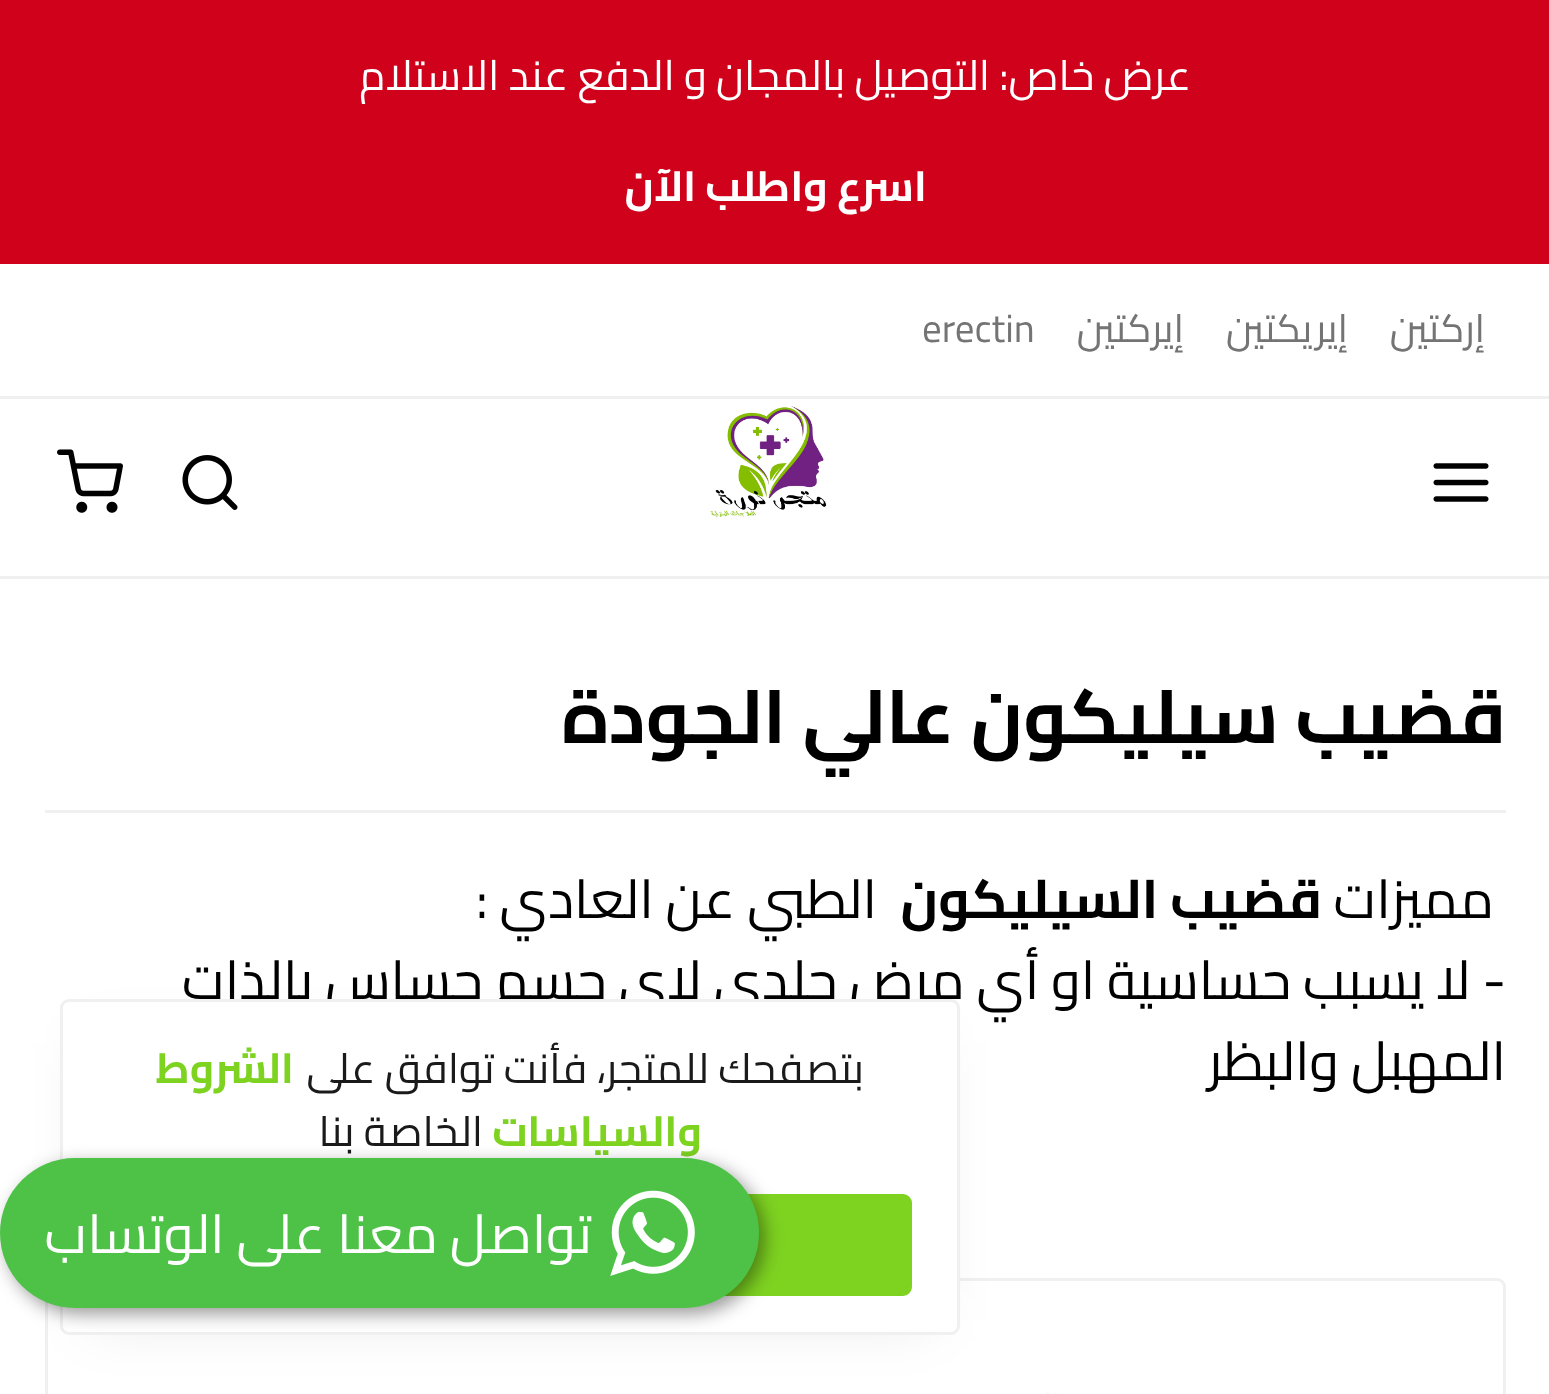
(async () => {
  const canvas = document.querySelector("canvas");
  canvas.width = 1549;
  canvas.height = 1394;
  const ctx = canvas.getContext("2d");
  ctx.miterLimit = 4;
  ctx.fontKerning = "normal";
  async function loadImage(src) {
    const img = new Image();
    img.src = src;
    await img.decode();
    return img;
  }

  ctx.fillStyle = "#ffffff";
  ctx.fillRect(0, 0, 1549, 1394);
  for (const [x, y, w, h, color] of [
    [0, 0, 1549, 264, "#d0021b"],
    [0, 396, 1549, 3, "#f0f0f0"],
    [0, 576, 1549, 3, "#f0f0f0"],
  ]) {
    ctx.fillStyle = color;
    ctx.fillRect(x, y, w, h);
  }
  ctx.drawImage(await loadImage("img/1.png"), 1433, 463, 56, 39);
  ctx.drawImage(await loadImage("img/2.png"), 710, 406, 117, 111);
  ctx.drawImage(await loadImage("img/3.png"), 182, 455, 56, 55);
  ctx.drawImage(await loadImage("img/4.png"), 57, 449, 66, 64);
  ctx.fillRect(45, 810, 1461, 3);
  ctx.beginPath();
  ctx.roundRect(46.5, 1279.5, 1458, 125, 7.5);
  ctx.strokeStyle = "#f0f0f0";
  ctx.lineWidth = 3;
  ctx.stroke();
  ctx.drawImage(await loadImage("img/5.png"), 1045, 1392, 12, 2);
  ctx.fillStyle = "rgba(0, 0, 0, 0.1)";
  ctx.filter = "blur(30px)";
  ctx.beginPath();
  ctx.rect(90, 1044, 840, 276);
  ctx.fill();
  ctx.filter = "none";
  ctx.direction = "rtl";
  ctx.font = "42px Cairo";
  ctx.fillStyle = "#ffffff";
  ctx.fillText("عرض خاص: التوصيل بالمجان و الدفع عند الاستلام", 1191, 90);
  ctx.font = "bold 42px Cairo";
  ctx.fillText("اسرع واطلب الآن", 927, 201);
  ctx.font = "39px Cairo";
  ctx.fillStyle = "#747474";
  for (const [text, x, y] of [
    ["إركتين", 1485, 342],
    ["إيريكتين", 1348, 342],
    ["إيركتين", 1184, 342],
  ]) {
    ctx.fillText(text, x, y);
  }
  ctx.direction = "ltr";
  ctx.fillText("erectin", 922, 342);
  ctx.direction = "rtl";
  ctx.font = "bold 75px Cairo";
  ctx.fillStyle = "#000000";
  ctx.fillText("قضيب", 1506, 743);
  ctx.fillText("سيليكون عالي الجودة", 1279, 743);
  ctx.font = "54px Cairo";
  ctx.fillText("مميزات", 1494, 918);
  ctx.font = "bold 54px Cairo";
  ctx.fillText("قضيب السيليكون", 1322, 918);
  ctx.font = "54px Cairo";
  for (const [text, x, y] of [
    ["الطبي عن العادي :", 877, 918],
    ["- لا يسبب حساسية او أي مرض جلدي لاي جسم حساس بالذات", 1506, 999],
    ["المهبل والبظر", 1506, 1080],
  ]) {
    ctx.fillText(text, x, y);
  }
  ctx.fillStyle = "#ffffff";
  ctx.beginPath();
  ctx.roundRect(61.5, 1000.5, 897, 333, 7.5);
  ctx.fill();
  ctx.stroke();
  ctx.font = "42px Cairo";
  ctx.fillStyle = "#1a1a1a";
  ctx.fillText("بتصفحك للمتجر، فأنت توافق على", 864, 1083);
  ctx.font = "bold 42px Cairo";
  ctx.fillStyle = "#7ed321";
  ctx.fillText("الشروط", 294, 1083);
  ctx.fillText("والسياسات", 702, 1146);
  ctx.font = "42px Cairo";
  ctx.fillStyle = "#1a1a1a";
  ctx.fillText("الخاصة بنا", 483, 1146);
  ctx.fillStyle = "#7ed321";
  ctx.beginPath();
  ctx.roundRect(109.5, 1195.5, 801, 99, 7.5);
  ctx.fill();
  ctx.strokeStyle = "#7ed321";
  ctx.stroke();
  ctx.fillStyle = "rgba(0, 0, 0, 0.4)";
  ctx.filter = "blur(9px)";
  ctx.beginPath();
  ctx.roundRect(6, 1164, 759, 150, 75);
  ctx.fill();
  ctx.filter = "none";
  ctx.fillStyle = "#4dc247";
  ctx.beginPath();
  ctx.roundRect(0, 1158, 759, 150, 75);
  ctx.fill();
  ctx.drawImage(await loadImage("img/6.png"), 610, 1190, 85, 86);
  ctx.font = "54px Cairo";
  ctx.fillStyle = "#ffffff";
  ctx.fillText("تواصل معنا على الوتساب", 592, 1253);
})();
